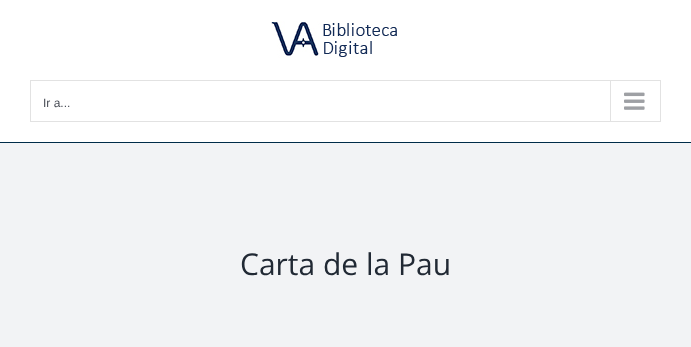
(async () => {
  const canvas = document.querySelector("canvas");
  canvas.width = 691;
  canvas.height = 347;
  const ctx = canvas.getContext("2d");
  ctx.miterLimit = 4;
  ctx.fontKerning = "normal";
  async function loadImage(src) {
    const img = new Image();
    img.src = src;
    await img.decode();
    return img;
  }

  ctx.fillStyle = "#ffffff";
  ctx.fillRect(0, 0, 691, 347);
  ctx.drawImage(await loadImage("img/1.png"), 271, 21, 126, 37);
  ctx.strokeStyle = "#e2e2e2";
  ctx.strokeRect(30.5, 80.5, 630, 41);
  ctx.fillStyle = "#e2e2e2";
  ctx.fillRect(610, 81, 1, 40);
  ctx.drawImage(await loadImage("img/2.png"), 624, 92, 21, 18);
  ctx.fillStyle = "#f2f3f5";
  ctx.fillRect(0, 143, 691, 204);
  ctx.fillStyle = "#002c49";
  ctx.fillRect(0, 142, 691, 1);
  ctx.font = "12px Liberation Sans";
  ctx.fillStyle = "#4a4e57";
  ctx.fillText("Ir a...", 43, 107);
  ctx.font = "30px Open Sans";
  ctx.fillStyle = "#212934";
  ctx.fillText("Carta de la Pau", 240, 275);
})();
